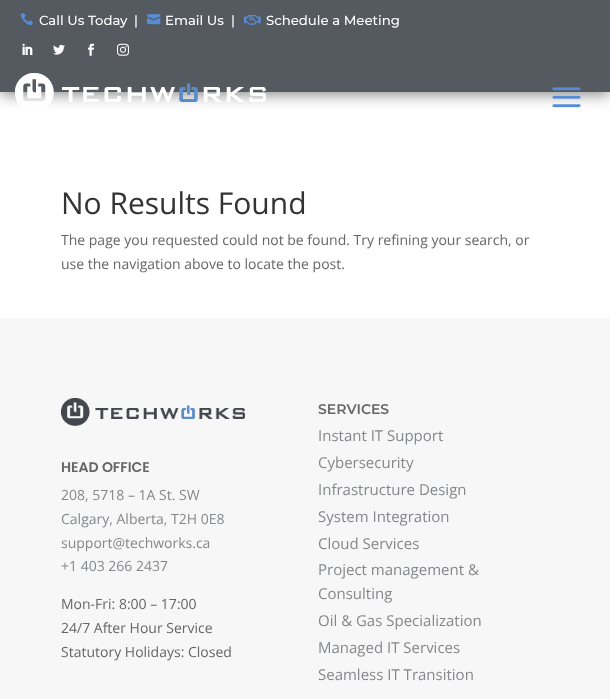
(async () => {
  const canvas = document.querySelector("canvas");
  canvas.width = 610;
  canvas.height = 699;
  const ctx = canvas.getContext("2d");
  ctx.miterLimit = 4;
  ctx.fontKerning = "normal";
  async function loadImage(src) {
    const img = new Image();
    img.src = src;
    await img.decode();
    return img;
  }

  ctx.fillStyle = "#ffffff";
  ctx.fillRect(0, 0, 610, 699);
  ctx.fillStyle = "rgba(0, 0, 0, 0.5)";
  ctx.filter = "blur(7.5px)";
  ctx.beginPath();
  ctx.rect(0, 2, 610, 92);
  ctx.fill();
  ctx.filter = "none";
  ctx.fillStyle = "#555960";
  ctx.fillRect(0, 0, 610, 92);
  ctx.drawImage(await loadImage("img/1.png"), 20, 13, 13, 13);
  ctx.drawImage(await loadImage("img/2.png"), 147, 14, 14, 11);
  ctx.drawImage(await loadImage("img/3.png"), 244, 15, 17, 10);
  ctx.drawImage(await loadImage("img/4.png"), 22, 43, 11, 12);
  ctx.drawImage(await loadImage("img/5.png"), 53, 44, 12, 11);
  ctx.drawImage(await loadImage("img/6.png"), 88, 43, 6, 13);
  ctx.drawImage(await loadImage("img/7.png"), 117, 43, 12, 13);
  ctx.drawImage(await loadImage("img/8.png"), 15, 73, 251, 35);
  ctx.drawImage(await loadImage("img/9.png"), 552, 87, 29, 21);
  ctx.fillStyle = "#f7f7f7";
  ctx.fillRect(0, 318, 610, 381);
  ctx.drawImage(await loadImage("img/10.png"), 61, 398, 184, 28);
  ctx.font = "500 13.25px Montserrat";
  ctx.fillStyle = "#ffffff";
  for (const [text, x, y] of [
    ["Call Us Today", 39, 25],
    ["|", 134, 25],
    ["Email Us", 165, 25],
    ["|", 231, 25],
    ["Schedule a Meeting", 266, 25],
  ]) {
    ctx.fillText(text, x, y);
  }
  ctx.font = "30px Open Sans";
  ctx.fillStyle = "#333333";
  ctx.fillText("No Results Found", 61, 214);
  ctx.font = "14px Open Sans";
  ctx.fillStyle = "#666666";
  ctx.fillText("The page you requested could not be found. Try refining your search, or", 61, 245);
  ctx.fillText("use the navigation above to locate the post.", 61, 269);
  ctx.font = "600 14px Poppins";
  ctx.fillText("HEAD OFFICE", 61, 472);
  ctx.font = "14px Open Sans";
  ctx.fillStyle = "#85878a";
  for (const [text, x, y] of [
    ["208, 5718 – 1A St. SW", 61, 500],
    ["Calgary, Alberta, T2H 0E8", 61, 524],
    ["support@techworks.ca", 61, 548],
    ["+1 403 266 2437", 61, 571],
  ]) {
    ctx.fillText(text, x, y);
  }
  ctx.fillStyle = "#666666";
  for (const [text, x, y] of [
    ["Mon-Fri: 8:00 – 17:00", 61, 609],
    ["24/7 After Hour Service", 61, 633],
    ["Statutory Holidays: Closed", 61, 657],
  ]) {
    ctx.fillText(text, x, y);
  }
  ctx.font = "600 14px Montserrat";
  ctx.fillText("SERVICES", 318, 414);
  ctx.font = "15px Open Sans";
  ctx.fillStyle = "#85878a";
  for (const [text, x, y] of [
    ["Instant IT Support", 318, 441],
    ["Cybersecurity", 318, 468],
    ["Infrastructure Design", 318, 495],
    ["System Integration", 318, 522],
    ["Cloud Services", 318, 549],
    ["Project management &", 318, 575],
    ["Consulting", 318, 599],
    ["Oil & Gas Specialization", 318, 626],
    ["Managed IT Services", 318, 653],
    ["Seamless IT Transition", 318, 680],
  ]) {
    ctx.fillText(text, x, y);
  }
})();
